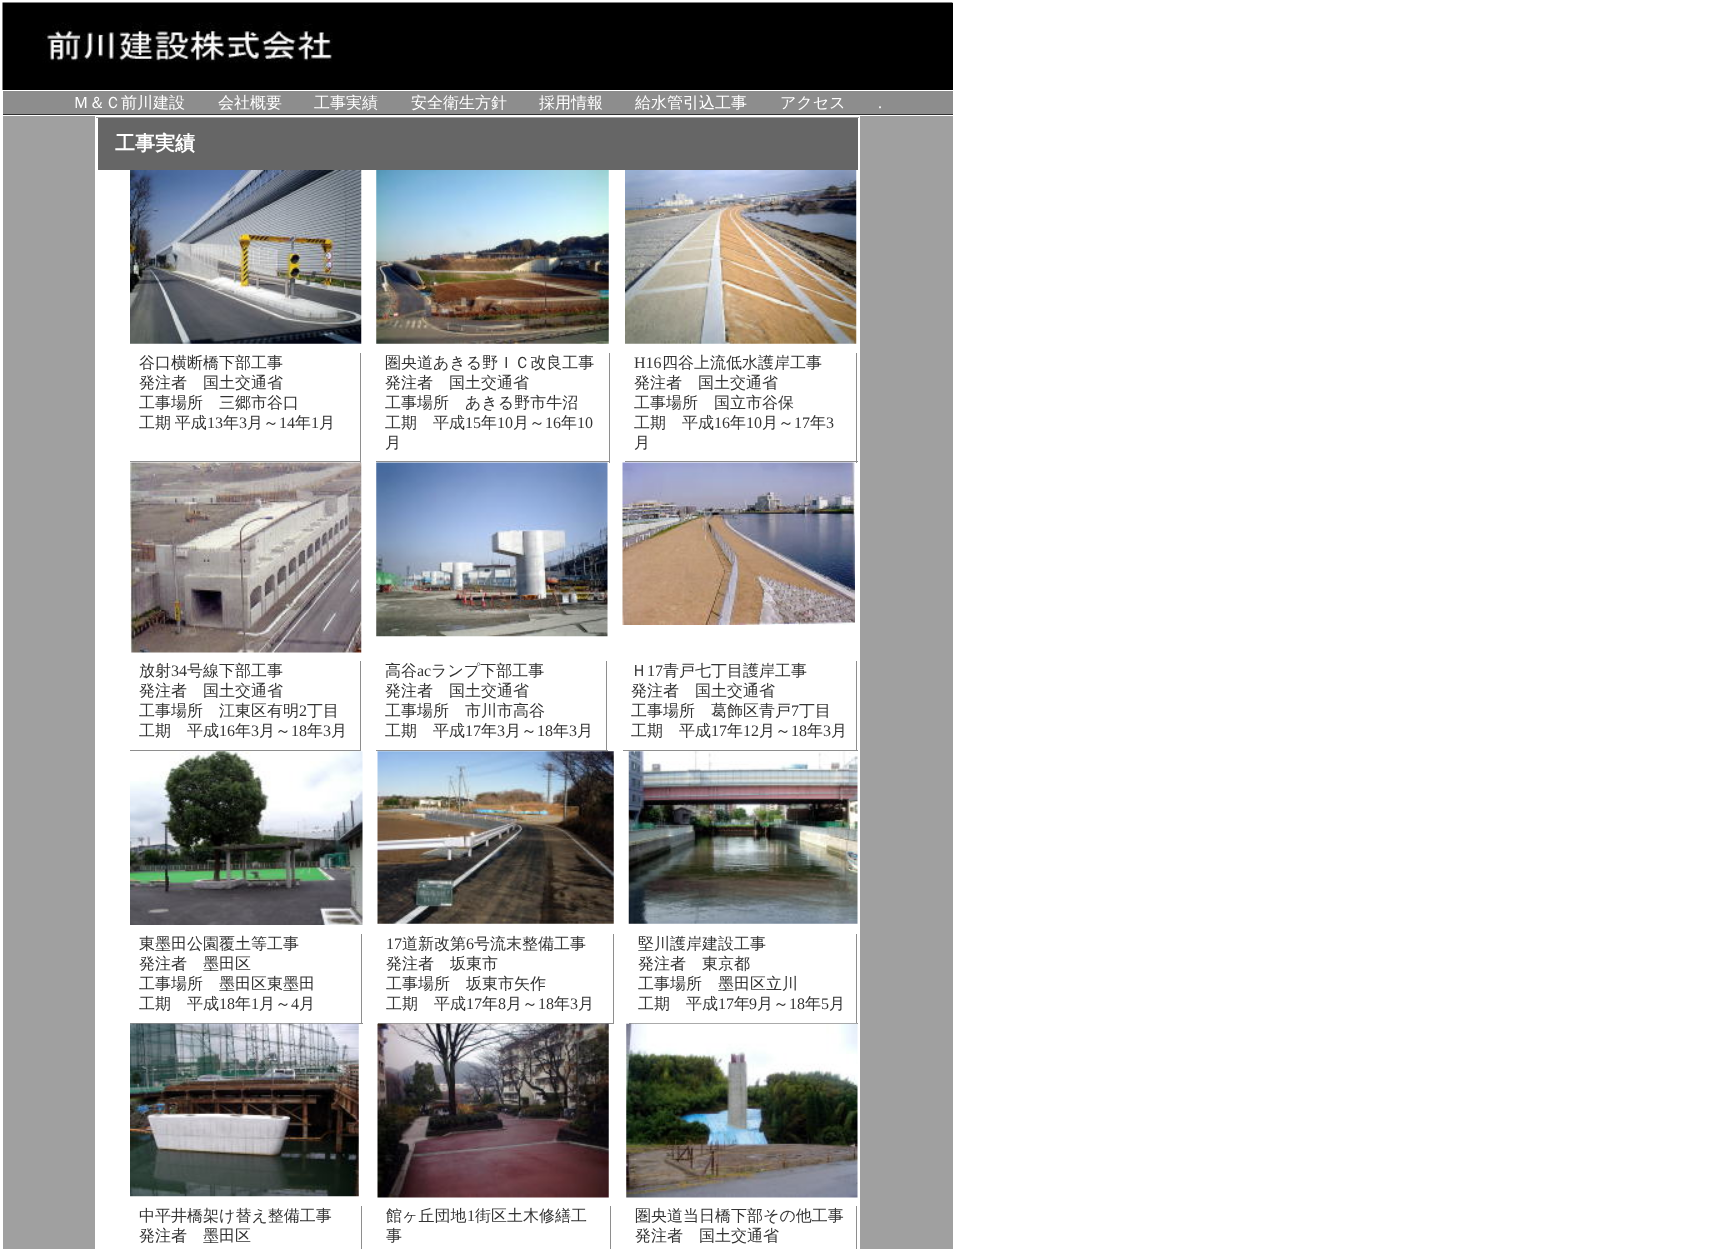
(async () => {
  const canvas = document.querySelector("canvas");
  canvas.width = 1733;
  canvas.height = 1249;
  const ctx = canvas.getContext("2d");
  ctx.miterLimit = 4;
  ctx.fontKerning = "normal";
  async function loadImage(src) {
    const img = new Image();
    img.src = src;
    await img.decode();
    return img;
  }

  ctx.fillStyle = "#ffffff";
  ctx.fillRect(0, 0, 1733, 1249);
  ctx.fillStyle = "#000000";
  ctx.fillRect(952, 3, 1, 87);
  ctx.drawImage(await loadImage("img/1.png"), 2, 2, 951, 88);
  for (const [x, y, w, h, color] of [
    [3, 91, 950, 23, "#8d8d8d"],
    [3, 114, 950, 1, "#303030"],
    [3, 116, 950, 1133, "#a0a0a0"],
    [95, 116, 765, 1133, "#ffffff"],
    [96, 117, 763, 1, "#a0a0a0"],
    [98, 118, 760, 52, "#666666"],
  ]) {
    ctx.fillStyle = color;
    ctx.fillRect(x, y, w, h);
  }
  ctx.drawImage(await loadImage("img/2.png"), 130, 170, 232, 174);
  ctx.drawImage(await loadImage("img/3.png"), 376, 170, 233, 174);
  ctx.drawImage(await loadImage("img/4.png"), 625, 170, 232, 174);
  for (const [x, y, w, h, color] of [
    [360, 353, 1, 110, "#8e8e8e"],
    [130, 461, 231, 1, "#8e8e8e"],
    [609, 353, 1, 110, "#8e8e8e"],
    [376, 461, 234, 1, "#8e8e8e"],
    [856, 353, 1, 110, "#8e8e8e"],
    [625, 461, 233, 1, "#8e8e8e"],
  ]) {
    ctx.fillStyle = color;
    ctx.fillRect(x, y, w, h);
  }
  ctx.drawImage(await loadImage("img/5.png"), 130, 462, 232, 191);
  ctx.drawImage(await loadImage("img/6.png"), 376, 462, 232, 175);
  ctx.drawImage(await loadImage("img/7.png"), 622, 462, 233, 163);
  for (const [x, y, w, h, color] of [
    [360, 661, 1, 90, "#8e8e8e"],
    [130, 750, 231, 1, "#8e8e8e"],
    [606, 661, 1, 90, "#8e8e8e"],
    [376, 750, 232, 1, "#8e8e8e"],
    [856, 661, 1, 90, "#8e8e8e"],
    [623, 750, 235, 1, "#8e8e8e"],
  ]) {
    ctx.fillStyle = color;
    ctx.fillRect(x, y, w, h);
  }
  ctx.drawImage(await loadImage("img/8.png"), 130, 751, 233, 174);
  ctx.drawImage(await loadImage("img/9.png"), 377, 751, 237, 173);
  ctx.drawImage(await loadImage("img/10.png"), 628, 751, 230, 173);
  for (const [x, y, w, h, color] of [
    [361, 934, 1, 90, "#8e8e8e"],
    [130, 1023, 233, 1, "#8e8e8e"],
    [613, 934, 1, 90, "#8e8e8e"],
    [378, 1023, 236, 1, "#8e8e8e"],
    [856, 934, 1, 90, "#8e8e8e"],
    [629, 1023, 229, 1, "#8e8e8e"],
  ]) {
    ctx.fillStyle = color;
    ctx.fillRect(x, y, w, h);
  }
  ctx.drawImage(await loadImage("img/11.png"), 130, 1023, 229, 174);
  ctx.drawImage(await loadImage("img/12.png"), 377, 1023, 232, 175);
  ctx.drawImage(await loadImage("img/13.png"), 626, 1023, 232, 175);
  for (const [x, y, w, h, color] of [
    [361, 1206, 1, 43, "#8e8e8e"],
    [610, 1206, 1, 43, "#8e8e8e"],
    [856, 1206, 1, 43, "#8e8e8e"],
  ]) {
    ctx.fillStyle = color;
    ctx.fillRect(x, y, w, h);
  }
  ctx.font = "500 16px WenQuanYi Zen Hei";
  ctx.fillStyle = "#ffffff";
  for (const [text, x, y] of [
    ["Ｍ＆Ｃ前川建設", 73, 108],
    ["会社概要", 218, 108],
    ["工事実績", 314, 108],
    ["安全衛生方針", 411, 108],
    ["採用情報", 539, 108],
    ["給水管引込工事", 635, 108],
    ["アクセス", 780, 108],
  ]) {
    ctx.fillText(text, x, y);
  }
  ctx.font = "16px Liberation Serif";
  ctx.fillText(".", 878, 108);
  ctx.font = "bold 20px WenQuanYi Zen Hei";
  ctx.fillText("工事実績", 115, 150);
  ctx.font = "500 16px WenQuanYi Zen Hei";
  ctx.fillStyle = "#333333";
  for (const [text, x, y] of [
    ["谷口横断橋下部工事", 139, 368],
    ["発注者　国土交通省", 139, 388],
    ["工事場所　三郷市谷口", 139, 408],
  ]) {
    ctx.fillText(text, x, y);
  }
  ctx.wordSpacing = "-1px";
  ctx.fillText("工期 平成", 139, 428);
  ctx.wordSpacing = "0px";
  ctx.font = "16px Liberation Serif";
  ctx.fillText("13", 207, 428);
  ctx.font = "500 16px WenQuanYi Zen Hei";
  ctx.fillText("年", 223, 428);
  ctx.font = "16px Liberation Serif";
  ctx.fillText("3", 239, 428);
  ctx.font = "500 16px WenQuanYi Zen Hei";
  ctx.fillText("月～", 247, 428);
  ctx.font = "16px Liberation Serif";
  ctx.fillText("14", 279, 428);
  ctx.font = "500 16px WenQuanYi Zen Hei";
  ctx.fillText("年", 295, 428);
  ctx.font = "16px Liberation Serif";
  ctx.fillText("1", 311, 428);
  ctx.font = "500 16px WenQuanYi Zen Hei";
  for (const [text, x, y] of [
    ["月", 319, 428],
    ["圏央道あきる野ＩＣ改良工事", 385, 368],
    ["発注者　国土交通省", 385, 388],
    ["工事場所　あきる野市牛沼", 385, 408],
    ["工期　平成", 385, 428],
  ]) {
    ctx.fillText(text, x, y);
  }
  ctx.font = "16px Liberation Serif";
  ctx.fillText("15", 465, 428);
  ctx.font = "500 16px WenQuanYi Zen Hei";
  ctx.fillText("年", 481, 428);
  ctx.font = "16px Liberation Serif";
  ctx.fillText("10", 497, 428);
  ctx.font = "500 16px WenQuanYi Zen Hei";
  ctx.fillText("月～", 513, 428);
  ctx.font = "16px Liberation Serif";
  ctx.fillText("16", 545, 428);
  ctx.font = "500 16px WenQuanYi Zen Hei";
  ctx.fillText("年", 561, 428);
  ctx.font = "16px Liberation Serif";
  ctx.fillText("10", 577, 428);
  ctx.font = "500 16px WenQuanYi Zen Hei";
  ctx.fillText("月", 385, 448);
  ctx.font = "16px Liberation Serif";
  ctx.fillText("H16", 634, 368);
  ctx.font = "500 16px WenQuanYi Zen Hei";
  for (const [text, x, y] of [
    ["四谷上流低水護岸工事", 662, 368],
    ["発注者　国土交通省", 634, 388],
    ["工事場所　国立市谷保", 634, 408],
    ["工期　平成", 634, 428],
  ]) {
    ctx.fillText(text, x, y);
  }
  ctx.font = "16px Liberation Serif";
  ctx.fillText("16", 714, 428);
  ctx.font = "500 16px WenQuanYi Zen Hei";
  ctx.fillText("年", 730, 428);
  ctx.font = "16px Liberation Serif";
  ctx.fillText("10", 746, 428);
  ctx.font = "500 16px WenQuanYi Zen Hei";
  ctx.fillText("月～", 762, 428);
  ctx.font = "16px Liberation Serif";
  ctx.fillText("17", 794, 428);
  ctx.font = "500 16px WenQuanYi Zen Hei";
  ctx.fillText("年", 810, 428);
  ctx.font = "16px Liberation Serif";
  ctx.fillText("3", 826, 428);
  ctx.font = "500 16px WenQuanYi Zen Hei";
  ctx.fillText("月", 634, 448);
  ctx.fillText("放射", 139, 676);
  ctx.font = "16px Liberation Serif";
  ctx.fillText("34", 171, 676);
  ctx.font = "500 16px WenQuanYi Zen Hei";
  for (const [text, x, y] of [
    ["号線下部工事", 187, 676],
    ["発注者　国土交通省", 139, 696],
    ["工事場所　江東区有明", 139, 716],
  ]) {
    ctx.fillText(text, x, y);
  }
  ctx.font = "16px Liberation Serif";
  ctx.fillText("2", 299, 716);
  ctx.font = "500 16px WenQuanYi Zen Hei";
  ctx.fillText("丁目", 307, 716);
  ctx.fillText("工期　平成", 139, 736);
  ctx.font = "16px Liberation Serif";
  ctx.fillText("16", 219, 736);
  ctx.font = "500 16px WenQuanYi Zen Hei";
  ctx.fillText("年", 235, 736);
  ctx.font = "16px Liberation Serif";
  ctx.fillText("3", 251, 736);
  ctx.font = "500 16px WenQuanYi Zen Hei";
  ctx.fillText("月～", 259, 736);
  ctx.font = "16px Liberation Serif";
  ctx.fillText("18", 291, 736);
  ctx.font = "500 16px WenQuanYi Zen Hei";
  ctx.fillText("年", 307, 736);
  ctx.font = "16px Liberation Serif";
  ctx.fillText("3", 323, 736);
  ctx.font = "500 16px WenQuanYi Zen Hei";
  ctx.fillText("月", 331, 736);
  ctx.fillText("高谷", 385, 676);
  ctx.font = "16px Liberation Serif";
  ctx.fillText("ac", 417, 676);
  ctx.font = "500 16px WenQuanYi Zen Hei";
  for (const [text, x, y] of [
    ["ランプ下部工事", 431, 676],
    ["発注者　国土交通省", 385, 696],
    ["工事場所　市川市高谷", 385, 716],
    ["工期　平成", 385, 736],
  ]) {
    ctx.fillText(text, x, y);
  }
  ctx.font = "16px Liberation Serif";
  ctx.fillText("17", 465, 736);
  ctx.font = "500 16px WenQuanYi Zen Hei";
  ctx.fillText("年", 481, 736);
  ctx.font = "16px Liberation Serif";
  ctx.fillText("3", 497, 736);
  ctx.font = "500 16px WenQuanYi Zen Hei";
  ctx.fillText("月～", 505, 736);
  ctx.font = "16px Liberation Serif";
  ctx.fillText("18", 537, 736);
  ctx.font = "500 16px WenQuanYi Zen Hei";
  ctx.fillText("年", 553, 736);
  ctx.font = "16px Liberation Serif";
  ctx.fillText("3", 569, 736);
  ctx.font = "500 16px WenQuanYi Zen Hei";
  ctx.fillText("月", 577, 736);
  ctx.fillText("Ｈ", 631, 676);
  ctx.font = "16px Liberation Serif";
  ctx.fillText("17", 647, 676);
  ctx.font = "500 16px WenQuanYi Zen Hei";
  for (const [text, x, y] of [
    ["青戸七丁目護岸工事", 663, 676],
    ["発注者　国土交通省", 631, 696],
    ["工事場所　葛飾区青戸", 631, 716],
  ]) {
    ctx.fillText(text, x, y);
  }
  ctx.font = "16px Liberation Serif";
  ctx.fillText("7", 791, 716);
  ctx.font = "500 16px WenQuanYi Zen Hei";
  ctx.fillText("丁目", 799, 716);
  ctx.fillText("工期　平成", 631, 736);
  ctx.font = "16px Liberation Serif";
  ctx.fillText("17", 711, 736);
  ctx.font = "500 16px WenQuanYi Zen Hei";
  ctx.fillText("年", 727, 736);
  ctx.font = "16px Liberation Serif";
  ctx.fillText("12", 743, 736);
  ctx.font = "500 16px WenQuanYi Zen Hei";
  ctx.fillText("月～", 759, 736);
  ctx.font = "16px Liberation Serif";
  ctx.fillText("18", 791, 736);
  ctx.font = "500 16px WenQuanYi Zen Hei";
  ctx.fillText("年", 807, 736);
  ctx.font = "16px Liberation Serif";
  ctx.fillText("3", 823, 736);
  ctx.font = "500 16px WenQuanYi Zen Hei";
  for (const [text, x, y] of [
    ["月", 831, 736],
    ["東墨田公園覆土等工事", 139, 949],
    ["発注者　墨田区", 139, 969],
    ["工事場所　墨田区東墨田", 139, 989],
    ["工期　平成", 139, 1009],
  ]) {
    ctx.fillText(text, x, y);
  }
  ctx.font = "16px Liberation Serif";
  ctx.fillText("18", 219, 1009);
  ctx.font = "500 16px WenQuanYi Zen Hei";
  ctx.fillText("年", 235, 1009);
  ctx.font = "16px Liberation Serif";
  ctx.fillText("1", 251, 1009);
  ctx.font = "500 16px WenQuanYi Zen Hei";
  ctx.fillText("月～", 259, 1009);
  ctx.font = "16px Liberation Serif";
  ctx.fillText("4", 291, 1009);
  ctx.font = "500 16px WenQuanYi Zen Hei";
  ctx.fillText("月", 299, 1009);
  ctx.font = "16px Liberation Serif";
  ctx.fillText("17", 386, 949);
  ctx.font = "500 16px WenQuanYi Zen Hei";
  ctx.fillText("道新改第", 402, 949);
  ctx.font = "16px Liberation Serif";
  ctx.fillText("6", 466, 949);
  ctx.font = "500 16px WenQuanYi Zen Hei";
  for (const [text, x, y] of [
    ["号流末整備工事", 474, 949],
    ["発注者　坂東市", 386, 969],
    ["工事場所　坂東市矢作", 386, 989],
    ["工期　平成", 386, 1009],
  ]) {
    ctx.fillText(text, x, y);
  }
  ctx.font = "16px Liberation Serif";
  ctx.fillText("17", 466, 1009);
  ctx.font = "500 16px WenQuanYi Zen Hei";
  ctx.fillText("年", 482, 1009);
  ctx.font = "16px Liberation Serif";
  ctx.fillText("8", 498, 1009);
  ctx.font = "500 16px WenQuanYi Zen Hei";
  ctx.fillText("月～", 506, 1009);
  ctx.font = "16px Liberation Serif";
  ctx.fillText("18", 538, 1009);
  ctx.font = "500 16px WenQuanYi Zen Hei";
  ctx.fillText("年", 554, 1009);
  ctx.font = "16px Liberation Serif";
  ctx.fillText("3", 570, 1009);
  ctx.font = "500 16px WenQuanYi Zen Hei";
  for (const [text, x, y] of [
    ["月", 578, 1009],
    ["堅川護岸建設工事", 638, 949],
    ["発注者　東京都", 638, 969],
    ["工事場所　墨田区立川", 638, 989],
    ["工期　平成", 638, 1009],
  ]) {
    ctx.fillText(text, x, y);
  }
  ctx.font = "16px Liberation Serif";
  ctx.fillText("17", 718, 1009);
  ctx.font = "500 16px WenQuanYi Zen Hei";
  ctx.fillText("年", 734, 1009);
  ctx.font = "16px Liberation Serif";
  ctx.fillText("9", 749, 1009);
  ctx.font = "500 16px WenQuanYi Zen Hei";
  ctx.fillText("月～", 757, 1009);
  ctx.font = "16px Liberation Serif";
  ctx.fillText("18", 789, 1009);
  ctx.font = "500 16px WenQuanYi Zen Hei";
  ctx.fillText("年", 805, 1009);
  ctx.font = "16px Liberation Serif";
  ctx.fillText("5", 821, 1009);
  ctx.font = "500 16px WenQuanYi Zen Hei";
  for (const [text, x, y] of [
    ["月", 829, 1009],
    ["中平井橋架け替え整備工事", 139, 1221],
    ["発注者　墨田区", 139, 1241],
    ["館ヶ丘団地", 386, 1221],
  ]) {
    ctx.fillText(text, x, y);
  }
  ctx.font = "16px Liberation Serif";
  ctx.fillText("1", 467, 1221);
  ctx.font = "500 16px WenQuanYi Zen Hei";
  for (const [text, x, y] of [
    ["街区土木修繕工", 475, 1221],
    ["事", 386, 1241],
    ["圏央道当日橋下部その他工事", 635, 1221],
    ["発注者　国土交通省", 635, 1241],
  ]) {
    ctx.fillText(text, x, y);
  }
})();
